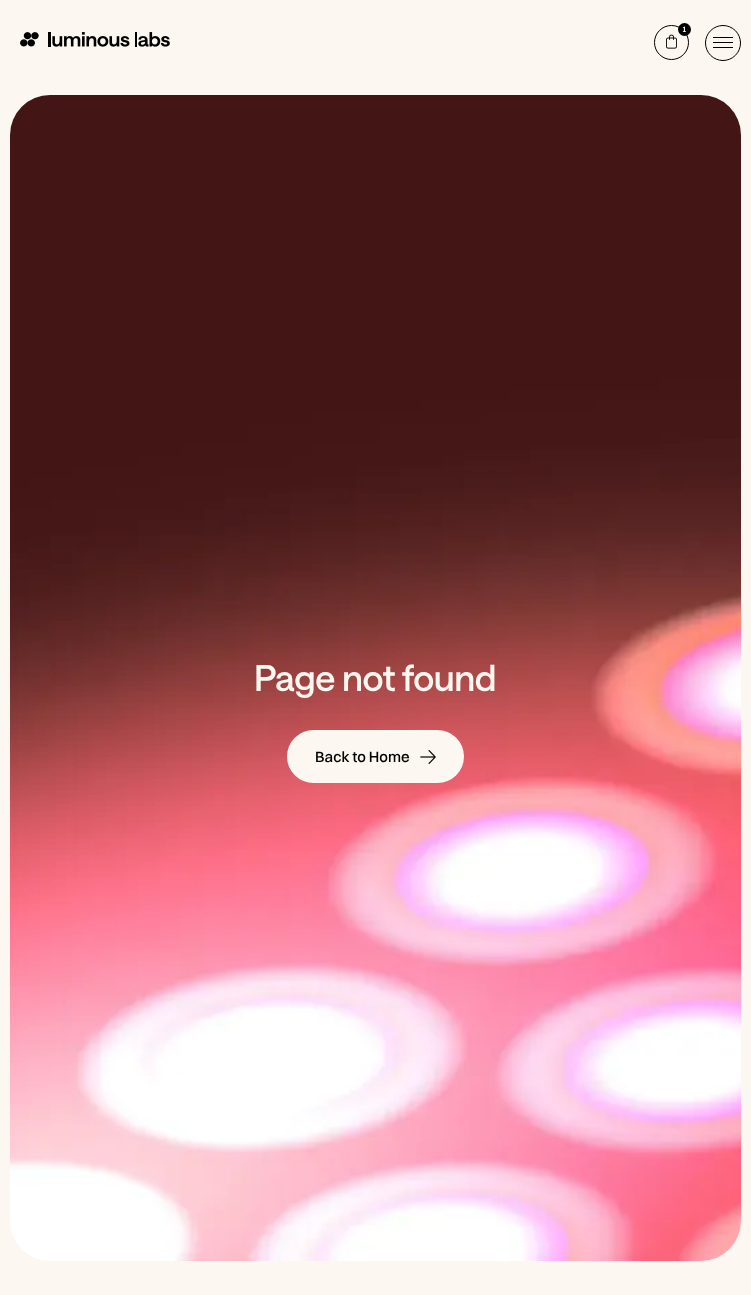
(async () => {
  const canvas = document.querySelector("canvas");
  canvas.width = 751;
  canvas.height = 1295;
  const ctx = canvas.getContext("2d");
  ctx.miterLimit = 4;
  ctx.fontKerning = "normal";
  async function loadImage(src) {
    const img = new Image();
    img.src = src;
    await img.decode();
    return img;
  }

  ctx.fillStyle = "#fcf8f1";
  ctx.fillRect(0, 0, 751, 1295);
  ctx.beginPath();
  ctx.arc(671.5, 42.5, 17, 0, Math.PI * 2);
  ctx.strokeStyle = "#000000";
  ctx.stroke();
  ctx.fillStyle = "#000000";
  ctx.beginPath();
  ctx.arc(684.5, 29.5, 6.5, 0, Math.PI * 2);
  ctx.fill();
  ctx.drawImage(await loadImage("img/1.png"), 666, 34, 11, 15);
  ctx.beginPath();
  ctx.arc(723, 43, 17.5, 0, Math.PI * 2);
  ctx.stroke();
  for (const [x, y, w, h, color] of [
    [713, 37, 20, 1, "#000000"],
    [713, 42, 20, 1, "#000000"],
    [713, 47, 20, 1, "#000000"],
  ]) {
    ctx.fillStyle = color;
    ctx.fillRect(x, y, w, h);
  }
  ctx.drawImage(await loadImage("img/2.png"), 20, 32, 150, 15);
  ctx.drawImage(await loadImage("img/3.png"), 10, 95, 731, 1166);
  ctx.fillStyle = "#fcf8f1";
  ctx.beginPath();
  ctx.roundRect(287, 730, 177, 53, 26.5);
  ctx.fill();
  ctx.drawImage(await loadImage("img/4.png"), 420, 750, 16, 14);
  ctx.font = "600 8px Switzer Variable";
  ctx.fillText("1", 682, 32);
  ctx.letterSpacing = "-0.4px";
  ctx.font = "500 36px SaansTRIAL";
  ctx.fillText("Page not found", 254, 691);
  ctx.letterSpacing = "0px";
  ctx.font = "500 15px Switzer Variable";
  ctx.fillStyle = "#000000";
  ctx.fillText("Back to Home", 315, 762);
})();
